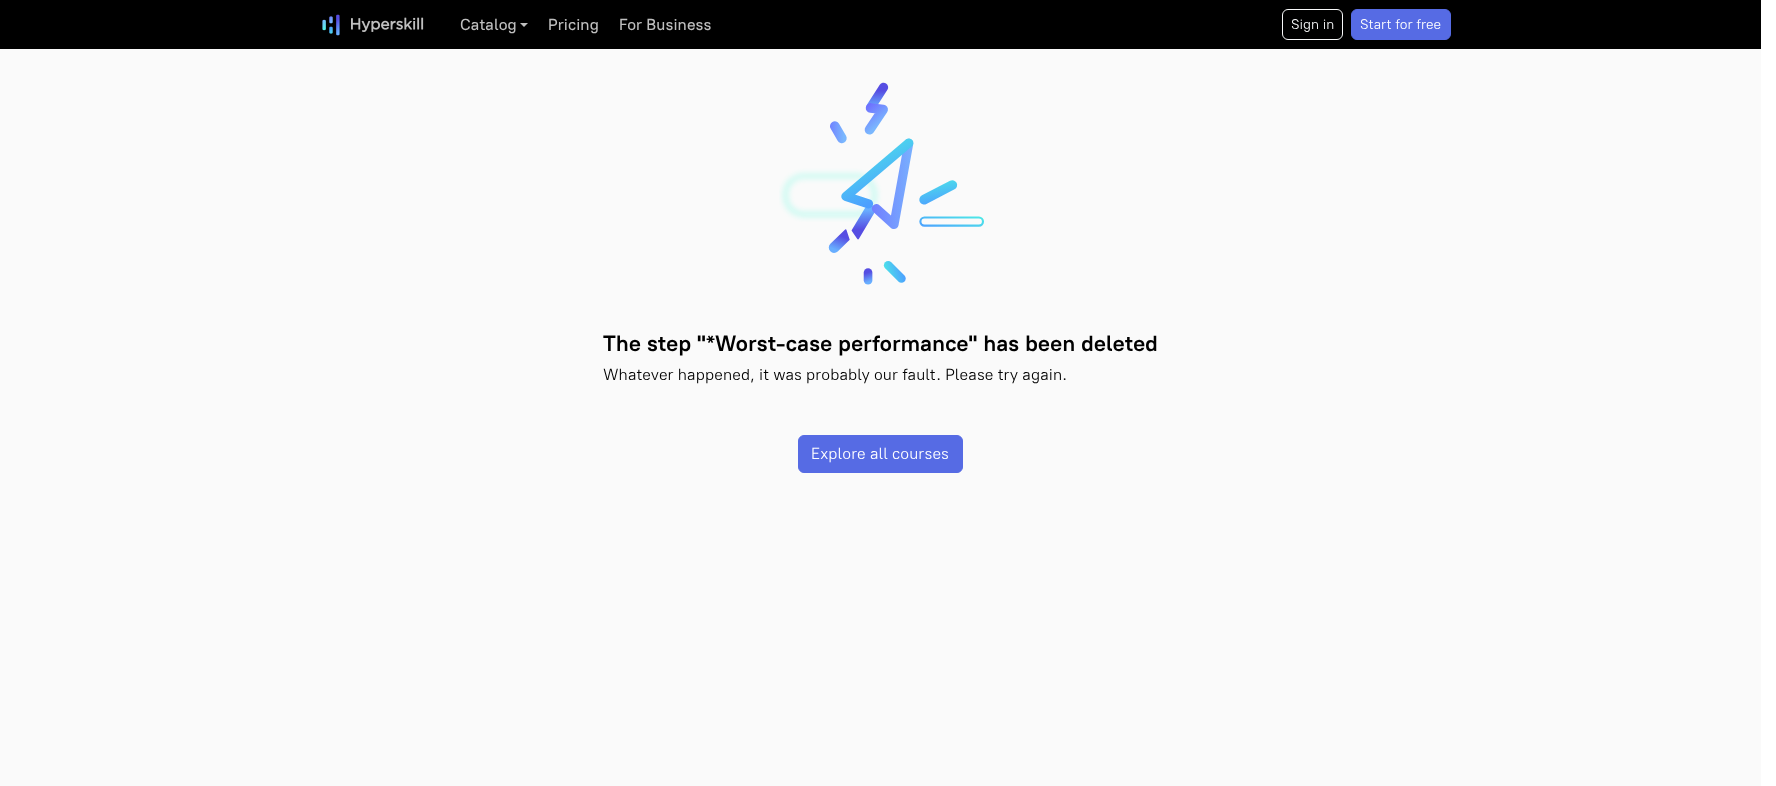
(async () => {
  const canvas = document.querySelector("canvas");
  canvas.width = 1776;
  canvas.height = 786;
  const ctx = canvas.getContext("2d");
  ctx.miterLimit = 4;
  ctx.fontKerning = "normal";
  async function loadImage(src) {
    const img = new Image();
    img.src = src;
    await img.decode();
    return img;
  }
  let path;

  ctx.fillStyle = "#ffffff";
  ctx.fillRect(0, 0, 1776, 786);
  ctx.fillStyle = "#000000";
  ctx.fillRect(0, 0, 1761, 49);
  ctx.drawImage(await loadImage("img/1.png"), 322, 14, 18, 22);
  ctx.drawImage(await loadImage("img/2.png"), 351, 17, 73, 15);
  ctx.fillStyle = "#bfbfbf";
  path = new Path2D("M520 23H528L524 27Z");
  ctx.fill(path);
  ctx.beginPath();
  ctx.roundRect(1282.5, 9.5, 60, 30, 5.5);
  ctx.strokeStyle = "#f8f9fa";
  ctx.stroke();
  ctx.fillStyle = "#566be4";
  ctx.beginPath();
  ctx.roundRect(1351.5, 9.5, 99, 30, 5.5);
  ctx.fill();
  ctx.strokeStyle = "#566be4";
  ctx.stroke();
  ctx.fillStyle = "#fafafa";
  ctx.fillRect(0, 49, 1761, 737);
  ctx.drawImage(await loadImage("img/3.png"), 779, 82, 205, 203);
  ctx.fillStyle = "#566be4";
  ctx.beginPath();
  ctx.roundRect(798.5, 435.5, 164, 37, 5.5);
  ctx.fill();
  ctx.stroke();
  ctx.letterSpacing = "0.1px";
  ctx.font = "500 16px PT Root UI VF";
  ctx.fillStyle = "#bfbfbf";
  for (const [text, x, y] of [
    ["Catalog", 460, 30],
    ["Pricing", 548, 30],
    ["For Business", 619, 30],
  ]) {
    ctx.fillText(text, x, y);
  }
  ctx.letterSpacing = "0px";
  ctx.font = "14px PT Root UI VF";
  ctx.fillStyle = "#f8f9fa";
  ctx.fillText("Sign in", 1291, 29);
  ctx.fillStyle = "#ffffff";
  ctx.fillText("Start for free", 1360, 29);
  ctx.letterSpacing = "0.3px";
  ctx.font = "bold 22px PT Root UI VF";
  ctx.fillStyle = "#000000";
  ctx.fillText("The step \"*Worst-case performance\" has been deleted", 603, 351);
  ctx.letterSpacing = "0.1px";
  ctx.font = "16px PT Root UI VF";
  ctx.fillText("Whatever happened, it was probably our fault. Please try again.", 603, 380);
  ctx.fillStyle = "#ffffff";
  ctx.fillText("Explore all courses", 811, 459);
})();
